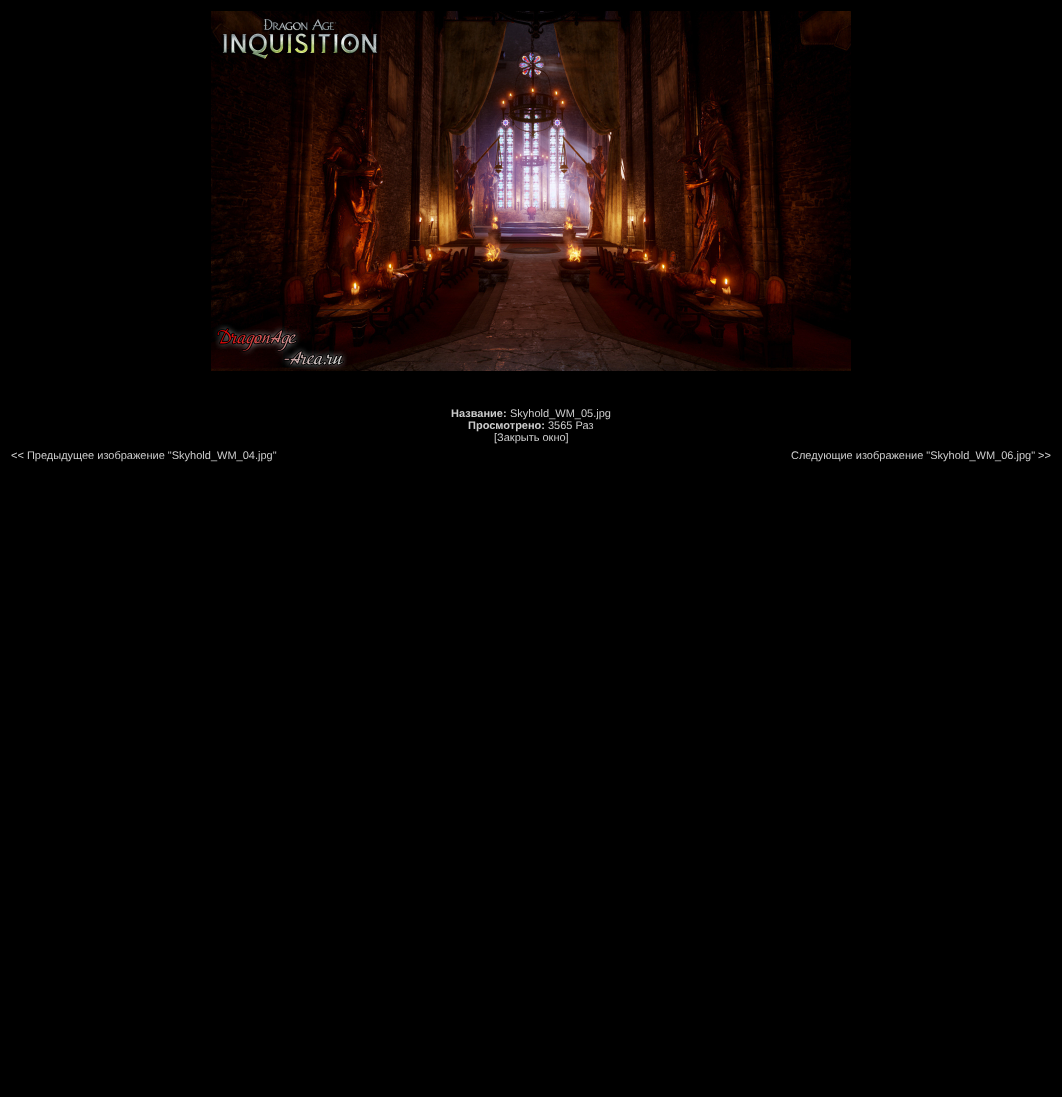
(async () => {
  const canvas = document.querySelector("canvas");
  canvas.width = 1062;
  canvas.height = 1097;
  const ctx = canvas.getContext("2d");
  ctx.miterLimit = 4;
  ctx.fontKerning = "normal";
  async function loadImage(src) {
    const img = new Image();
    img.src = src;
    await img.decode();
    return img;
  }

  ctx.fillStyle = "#000000";
  ctx.fillRect(0, 0, 1062, 1097);
  ctx.drawImage(await loadImage("img/1.png"), 211, 11, 640, 360);
  ctx.font = "bold 11px Liberation Sans";
  ctx.fillStyle = "#cccccc";
  ctx.fillText("Название:", 451, 417);
  ctx.font = "11px Liberation Sans";
  ctx.fillText("Skyhold_WM_05.jpg", 510, 417);
  ctx.font = "bold 11px Liberation Sans";
  ctx.fillText("Просмотрено:", 468, 429);
  ctx.font = "11px Liberation Sans";
  for (const [text, x, y] of [
    ["3565 Раз", 548, 429],
    ["[Закрыть окно]", 494, 441],
    ["<< Предыдущее изображение \"Skyhold_WM_04.jpg\"", 11, 459],
    ["Следующие изображение \"Skyhold_WM_06.jpg\" >>", 791, 459],
  ]) {
    ctx.fillText(text, x, y);
  }
})();
